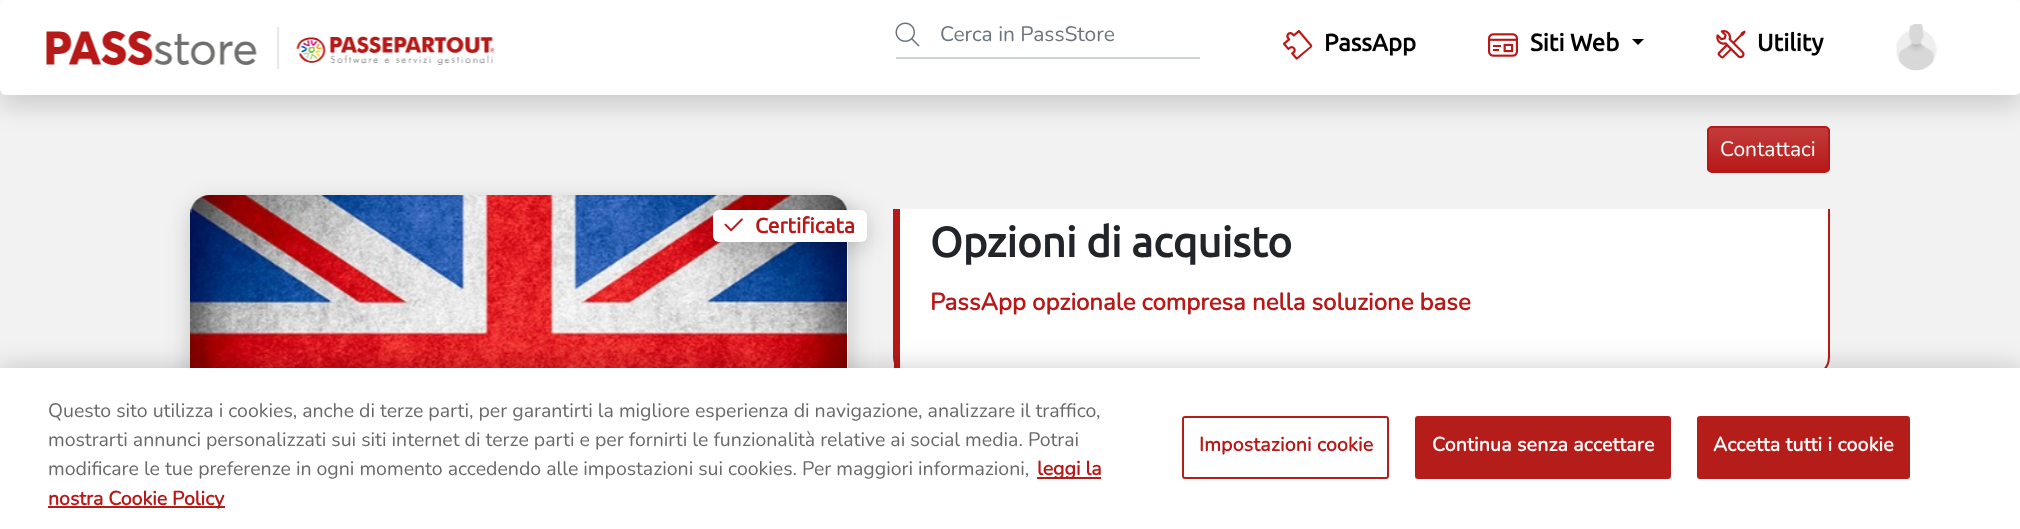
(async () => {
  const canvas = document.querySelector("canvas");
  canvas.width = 2020;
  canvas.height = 529;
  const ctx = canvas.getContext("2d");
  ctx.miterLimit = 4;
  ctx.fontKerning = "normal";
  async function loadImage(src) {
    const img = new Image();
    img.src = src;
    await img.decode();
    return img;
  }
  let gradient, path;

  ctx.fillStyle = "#ffffff";
  ctx.fillRect(0, 0, 2020, 529);
  ctx.fillStyle = "#f2f2f2";
  ctx.fillRect(0, 89, 2020, 279);
  ctx.save();
  ctx.beginPath();
  ctx.roundRect(1707, 126, 123, 47, 5);
  ctx.clip();
  gradient = ctx.createLinearGradient(1769, 128, 1769, 171);
  gradient.addColorStop(0, "#c23c3b");
  gradient.addColorStop(1, "#b71918");
  ctx.fillStyle = gradient;
  ctx.fillRect(1707, 128, 123, 43);
  ctx.restore();
  ctx.beginPath();
  ctx.roundRect(1708, 127, 121, 45, 4);
  ctx.strokeStyle = "#b71918";
  ctx.lineWidth = 2;
  ctx.stroke();
  ctx.fillStyle = "rgba(0, 0, 0, 0.15)";
  ctx.filter = "blur(12px)";
  ctx.beginPath();
  ctx.roundRect(0, 12, 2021, 95, 6);
  ctx.fill();
  ctx.filter = "none";
  ctx.fillStyle = "#ffffff";
  ctx.beginPath();
  ctx.roundRect(0, 0, 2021, 95, 6);
  ctx.fill();
  ctx.drawImage(await loadImage("img/1.png"), 46, 27, 450, 42);
  ctx.drawImage(await loadImage("img/2.png"), 895, 22, 25, 25);
  ctx.fillStyle = "#ced4da";
  ctx.fillRect(896, 57, 304, 2);
  ctx.drawImage(await loadImage("img/3.png"), 1283, 30, 30, 30);
  ctx.drawImage(await loadImage("img/4.png"), 1488, 33, 30, 24);
  ctx.fillStyle = "#000000";
  path = new Path2D("M1632 39H1644L1638 45Z");
  ctx.fill(path);
  ctx.drawImage(await loadImage("img/5.png"), 1716, 30, 30, 29);
  ctx.drawImage(await loadImage("img/6.png"), 1896, 24, 41, 47);
  ctx.fillStyle = "#ffffff";
  path = new Path2D("M912 186H1811C1821 186 1828 194 1828 204V357C1828 367 1821 375 1811 375H912C905 375 900 367 900 357V204C900 194 905 186 912 186Z");
  ctx.fill(path);
  ctx.beginPath();
  ctx.roundRect(894, 186, 935, 190, 19);
  ctx.stroke();
  ctx.fillStyle = "#f2f2f2";
  ctx.fillRect(893, 185, 937, 24);
  ctx.fillStyle = "rgba(0, 0, 0, 0.2)";
  ctx.filter = "blur(12px)";
  ctx.beginPath();
  ctx.roundRect(191, 203, 657, 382, 20);
  ctx.fill();
  ctx.filter = "none";
  ctx.fillStyle = "#ffffff";
  ctx.beginPath();
  ctx.roundRect(191, 195, 657, 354, 20);
  ctx.fill();
  ctx.drawImage(await loadImage("img/7.png"), 190, 195, 657, 173);
  ctx.fillStyle = "#b71918";
  ctx.fillRect(894, 209, 6, 159);
  ctx.fillStyle = "rgba(0, 0, 0, 0.2)";
  ctx.filter = "blur(12px)";
  ctx.beginPath();
  ctx.roundRect(713, 215, 154, 31, 6);
  ctx.fill();
  ctx.filter = "none";
  ctx.fillStyle = "#ffffff";
  ctx.beginPath();
  ctx.roundRect(713, 210, 154, 32, 6);
  ctx.fill();
  ctx.drawImage(await loadImage("img/8.png"), 724, 218, 19, 14);
  ctx.fillStyle = "rgba(0, 0, 0, 0.2)";
  ctx.filter = "blur(13.5px)";
  ctx.beginPath();
  ctx.rect(0, 368, 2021, 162);
  ctx.fill();
  ctx.filter = "none";
  for (const [x, y, w, h, color] of [
    [0, 368, 2020, 161, "#ffffff"],
    [1037, 477, 64, 2, "#b51d1b"],
    [48, 506, 177, 2, "#b51d1b"],
  ]) {
    ctx.fillStyle = color;
    ctx.fillRect(x, y, w, h);
  }
  ctx.beginPath();
  ctx.roundRect(1183, 417, 205, 61, 2);
  ctx.strokeStyle = "#b51d1b";
  ctx.stroke();
  ctx.beginPath();
  ctx.roundRect(1416, 417, 254, 61, 2);
  ctx.fill();
  ctx.stroke();
  ctx.beginPath();
  ctx.roundRect(1698, 417, 211, 61, 2);
  ctx.fill();
  ctx.stroke();
  ctx.font = "200 21px Nunito";
  ctx.fillStyle = "#6c757d";
  ctx.fillText("Cerca in PassStore", 940, 41);
  ctx.font = "bold 24px Ubuntu";
  ctx.fillStyle = "#000000";
  for (const [text, x, y] of [
    ["PassApp", 1324, 51],
    ["Siti Web", 1530, 51],
    ["Utility", 1757, 51],
  ]) {
    ctx.fillText(text, x, y);
  }
  ctx.font = "200 21px Nunito";
  ctx.fillStyle = "#ffffff";
  ctx.fillText("Contattaci", 1720, 156);
  ctx.font = "bold 21px Ubuntu";
  ctx.fillStyle = "#b71918";
  ctx.fillText("Certificata", 755, 233);
  ctx.font = "bold 42px Ubuntu";
  ctx.fillStyle = "#212529";
  ctx.fillText("Opzioni di acquisto", 930, 257);
  ctx.font = "bold 24px Nunito";
  ctx.fillStyle = "#b71918";
  ctx.fillText("PassApp opzionale compresa nella soluzione base", 930, 310);
  ctx.font = "200 19.5px Nunito";
  ctx.fillStyle = "#696969";
  for (const [text, x, y] of [
    ["Questo sito utilizza i cookies, anche di terze parti, per garantirti la migliore esperienza di navigazione, analizzare il traffico,", 48, 417],
    ["mostrarti annunci personalizzati sui siti internet di terze parti e per fornirti le funzionalità relative ai social media. Potrai", 48, 446],
    ["modificare le tue preferenze in ogni momento accedendo alle impostazioni sui cookies. Per maggiori informazioni,", 48, 475],
  ]) {
    ctx.fillText(text, x, y);
  }
  ctx.font = "bold 19.5px Nunito";
  ctx.fillStyle = "#b71918";
  ctx.fillText("leggi la", 1037, 475);
  ctx.fillText("nostra Cookie Policy", 48, 505);
  ctx.letterSpacing = "0.2px";
  ctx.fillText("Impostazioni cookie", 1199, 451);
  ctx.fillStyle = "#ffffff";
  ctx.fillText("Continua senza accettare", 1432, 451);
  ctx.fillText("Accetta tutti i cookie", 1713, 451);
})();
